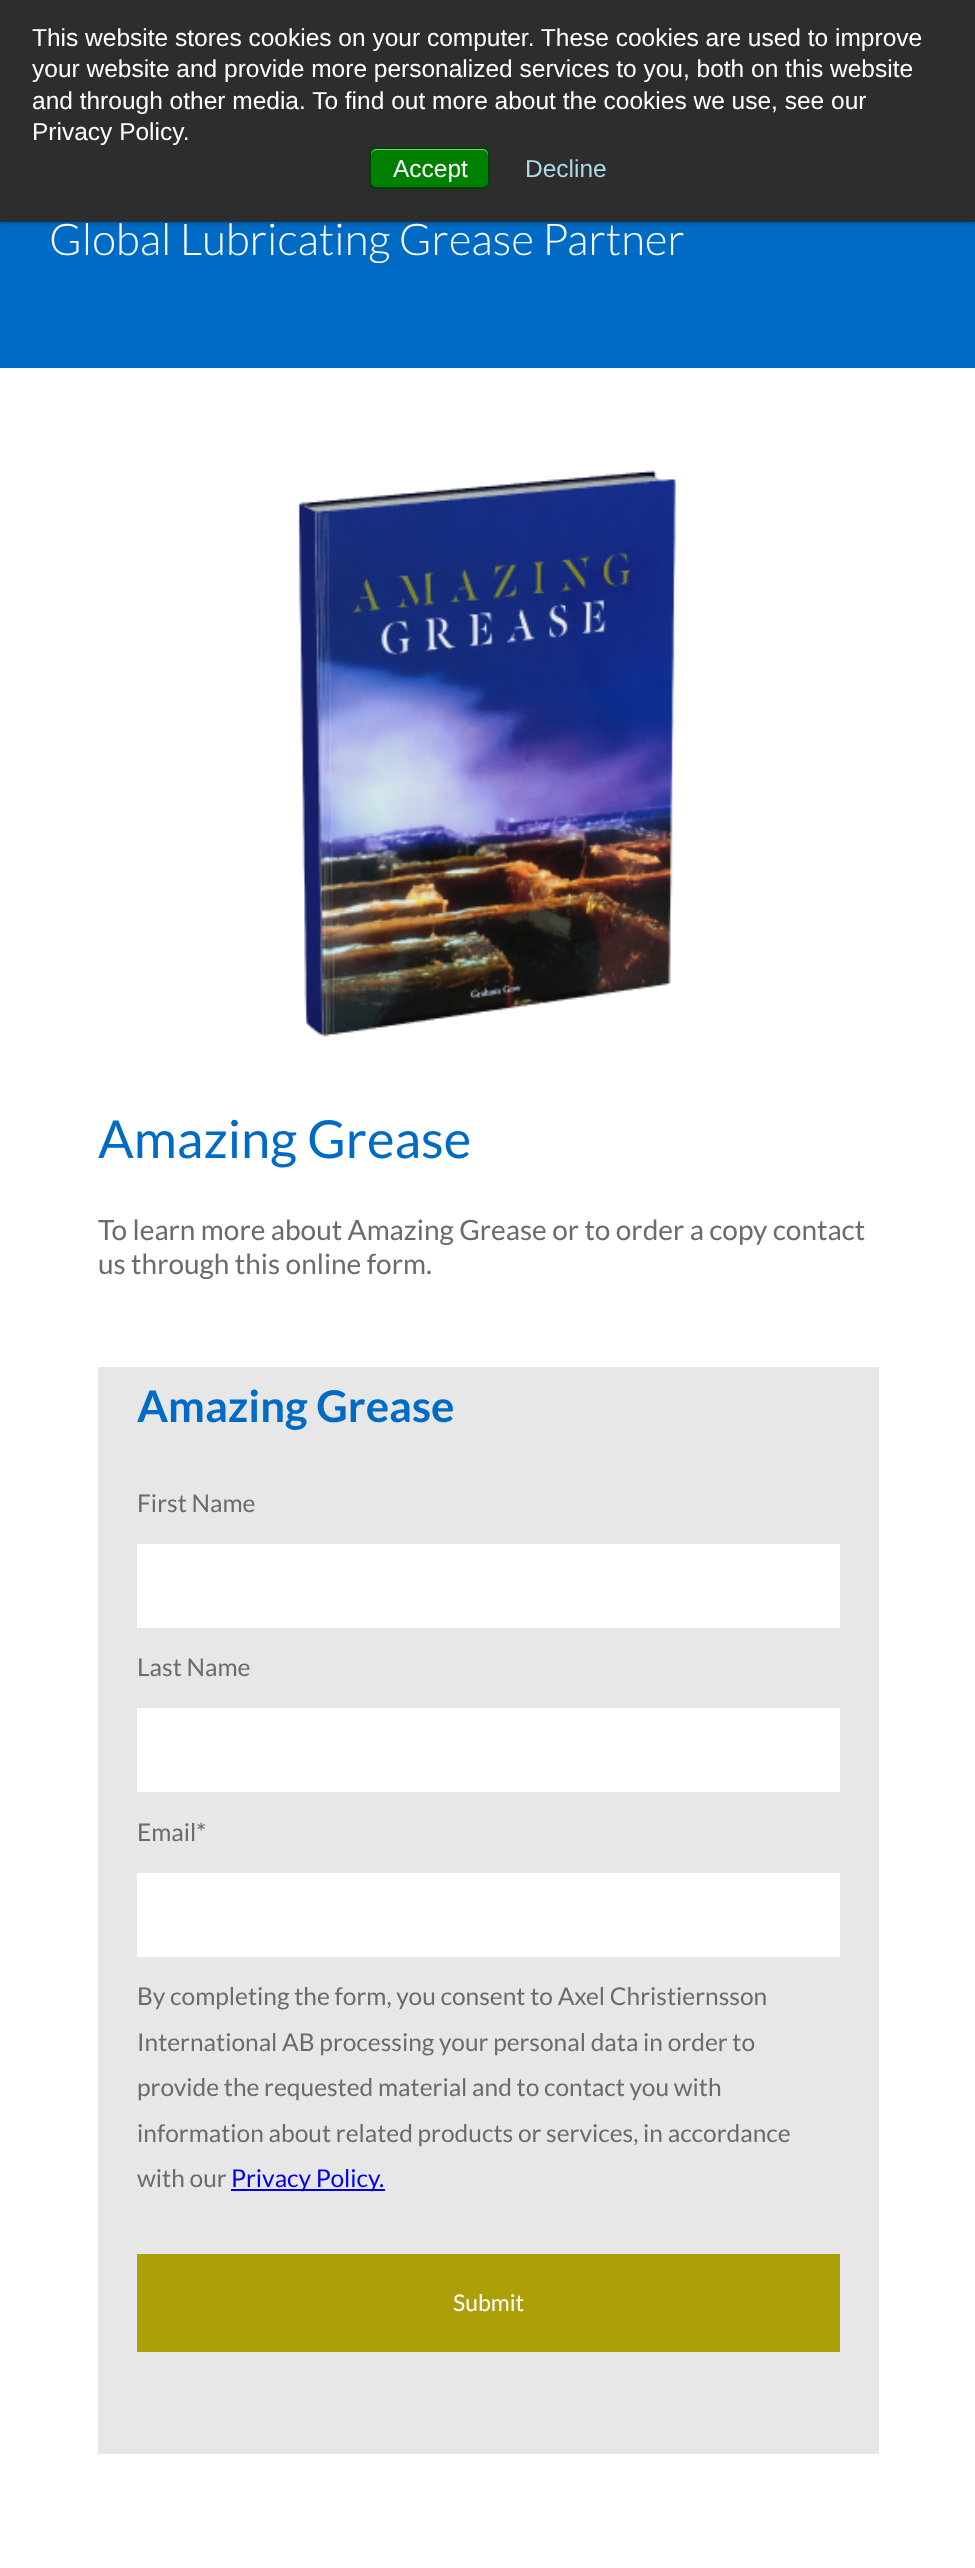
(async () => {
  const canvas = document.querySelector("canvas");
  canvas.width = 975;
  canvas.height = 2568;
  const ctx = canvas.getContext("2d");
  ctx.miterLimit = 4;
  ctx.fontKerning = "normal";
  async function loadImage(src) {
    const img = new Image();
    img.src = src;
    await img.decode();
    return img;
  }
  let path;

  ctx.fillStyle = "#ffffff";
  ctx.fillRect(0, 0, 975, 2568);
  ctx.fillStyle = "#006bc5";
  ctx.fillRect(0, 222, 975, 146);
  ctx.fillStyle = "rgba(0, 0, 0, 0.2)";
  ctx.filter = "blur(2px)";
  ctx.beginPath();
  ctx.rect(0, 2, 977, 222);
  ctx.fill();
  ctx.filter = "none";
  ctx.fillStyle = "#2d2d2d";
  ctx.fillRect(0, 0, 975, 222);
  ctx.fillStyle = "#008000";
  ctx.beginPath();
  ctx.roundRect(369, 147, 121, 42, 7);
  ctx.fill();
  ctx.fillStyle = "#80c080";
  path = new Path2D("M376 150H483C486 150 488 153 488 156V154C488 151 486 149 483 149H376C373 149 371 151 371 154V156C371 153 373 150 376 150Z");
  ctx.fill(path);
  ctx.beginPath();
  ctx.roundRect(370, 148, 119, 40, 6);
  ctx.strokeStyle = "rgba(0, 0, 0, 0.5)";
  ctx.lineWidth = 2;
  ctx.stroke();
  ctx.drawImage(await loadImage("img/1.png"), 298, 470, 378, 567);
  for (const [x, y, w, h, color] of [
    [98, 1367, 781, 1087, "#e7e7e7"],
    [137, 1544, 703, 84, "#ffffff"],
    [137, 1708, 703, 84, "#ffffff"],
    [137, 1873, 703, 84, "#ffffff"],
    [231, 2189, 154, 2, "#0000ee"],
    [137, 2254, 703, 98, "#ad9f07"],
  ]) {
    ctx.fillStyle = color;
    ctx.fillRect(x, y, w, h);
  }
  ctx.font = "24.5px Liberation Sans";
  ctx.fillStyle = "#ffffff";
  for (const [text, x, y] of [
    ["This website stores cookies on your computer. These cookies are used to improve", 32, 46],
    ["your website and provide more personalized services to you, both on this website", 32, 77],
    ["and through other media. To find out more about the cookies we use, see our", 32, 109],
    ["Privacy Policy.", 32, 140],
    ["Accept", 393, 177],
  ]) {
    ctx.fillText(text, x, y);
  }
  ctx.fillStyle = "#add8e6";
  ctx.fillText("Decline", 525, 177);
  ctx.font = "300 43.75px Lato";
  ctx.fillStyle = "#ffffff";
  ctx.fillText("Global Lubricating Grease Partner", 49, 255);
  ctx.font = "52.5px Lato";
  ctx.fillStyle = "#006bc5";
  ctx.fillText("Amazing Grease", 98, 1158);
  ctx.font = "28px Lato";
  ctx.fillStyle = "#6b6b6b";
  ctx.fillText("To learn more about Amazing Grease or to order a copy contact", 98, 1240);
  ctx.fillText("us through this online form.", 98, 1274);
  ctx.font = "bold 43.75px Lato";
  ctx.fillStyle = "#006bc5";
  ctx.fillText("Amazing Grease", 137, 1422);
  ctx.font = "24.5px Lato";
  ctx.fillStyle = "#6b6b6b";
  for (const [text, x, y] of [
    ["First Name", 137, 1512],
    ["Last Name", 137, 1676],
    ["Email*", 137, 1841],
    ["By completing the form, you consent to Axel Christiernsson", 137, 2005],
    ["International AB processing your personal data in order to", 137, 2051],
    ["provide the requested material and to contact you with", 137, 2096],
    ["information about related products or services, in accordance", 137, 2142],
    ["with our", 137, 2187],
  ]) {
    ctx.fillText(text, x, y);
  }
  ctx.fillStyle = "#0000ee";
  ctx.fillText("Privacy Policy.", 231, 2187);
  ctx.font = "23px Lato";
  ctx.fillStyle = "#ffffff";
  ctx.fillText("Submit", 453, 2311);
})();
